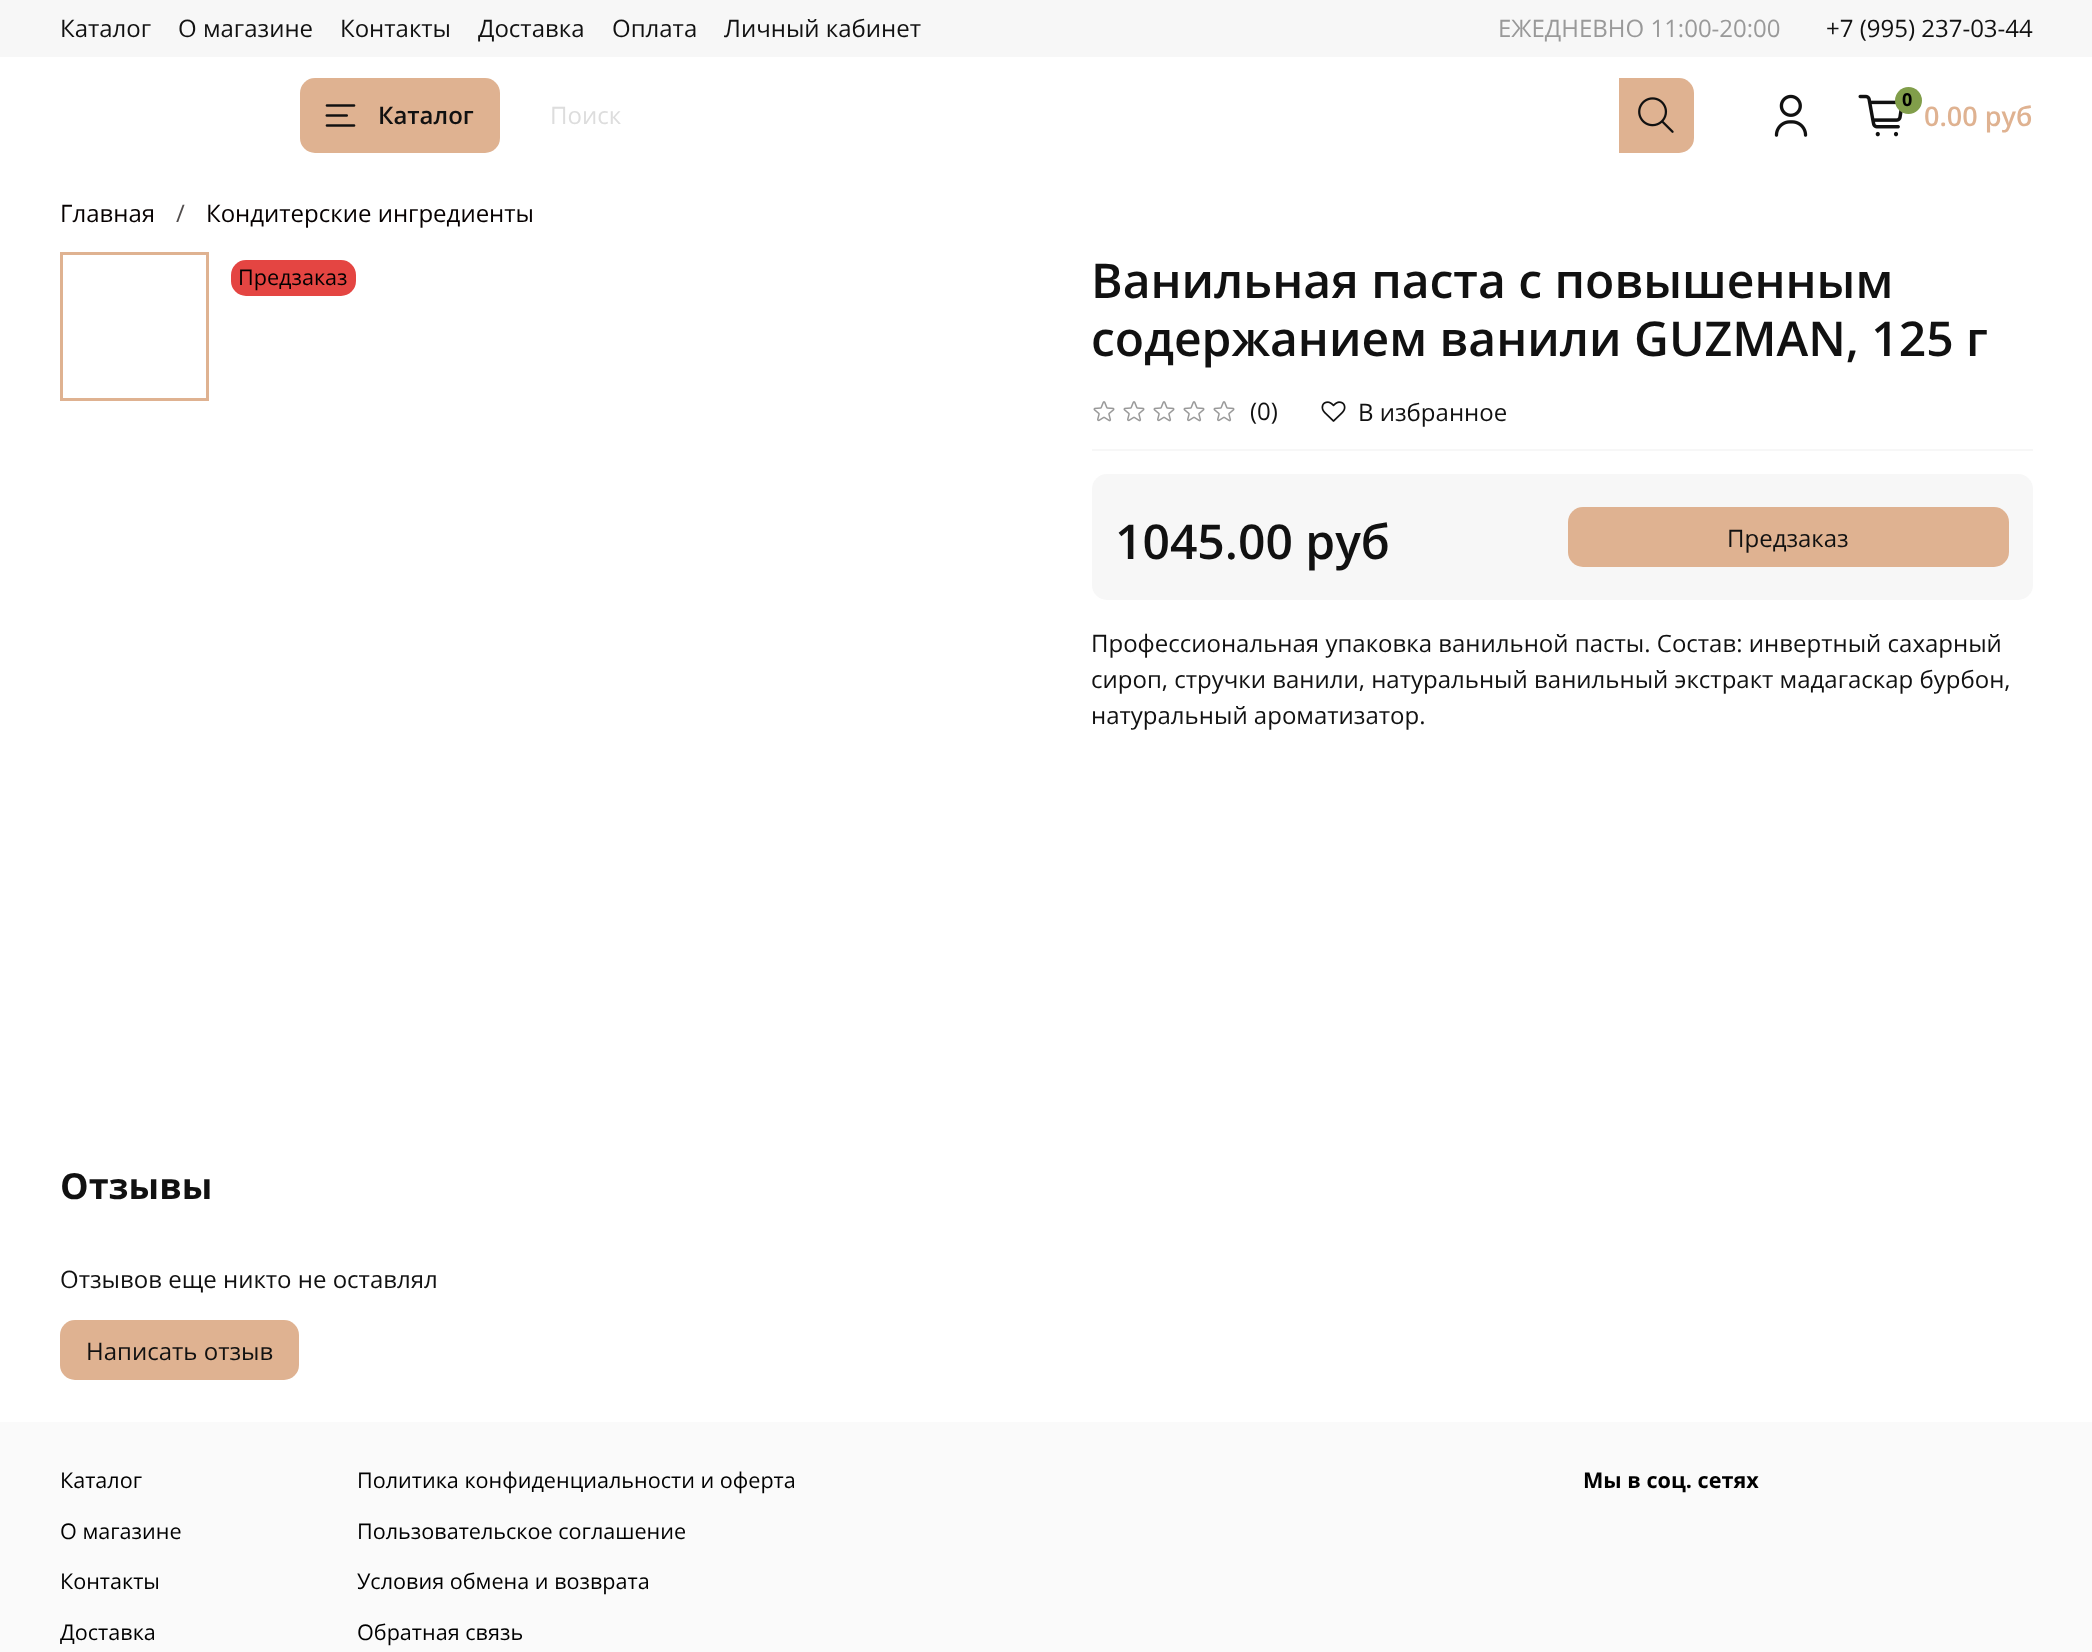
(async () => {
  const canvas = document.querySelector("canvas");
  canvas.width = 2092;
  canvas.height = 1652;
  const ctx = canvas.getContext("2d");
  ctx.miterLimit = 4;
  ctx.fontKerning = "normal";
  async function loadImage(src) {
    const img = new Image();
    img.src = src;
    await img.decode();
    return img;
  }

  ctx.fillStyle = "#ffffff";
  ctx.fillRect(0, 0, 2092, 1652);
  ctx.fillStyle = "#f7f7f7";
  ctx.fillRect(0, 0, 2092, 57);
  ctx.fillStyle = "#dfb291";
  ctx.beginPath();
  ctx.roundRect(300, 78, 200, 75, 15);
  ctx.fill();
  ctx.drawImage(await loadImage("img/1.png"), 325, 104, 31, 23);
  ctx.beginPath();
  ctx.roundRect(1619, 78, 75, 75, [0, 15, 15, 0]);
  ctx.fill();
  ctx.drawImage(await loadImage("img/2.png"), 1638, 97, 36, 36);
  ctx.drawImage(await loadImage("img/3.png"), 1774, 94, 34, 43);
  ctx.drawImage(await loadImage("img/4.png"), 1858, 94, 45, 43);
  ctx.fillStyle = "#819e4a";
  ctx.beginPath();
  ctx.arc(1908.5, 100.5, 13.5, 0, Math.PI * 2);
  ctx.fill();
  ctx.strokeStyle = "#dfb291";
  ctx.lineWidth = 3;
  ctx.strokeRect(61.5, 253.5, 146, 146);
  ctx.fillStyle = "#e44542";
  ctx.beginPath();
  ctx.roundRect(231, 260, 125, 36, 15);
  ctx.fill();
  ctx.fillStyle = "#f7f7f7";
  ctx.fillRect(1092, 449, 941, 2);
  ctx.drawImage(await loadImage("img/5.png"), 1093, 401, 22, 21);
  ctx.drawImage(await loadImage("img/5.png"), 1123, 401, 22, 21);
  ctx.drawImage(await loadImage("img/5.png"), 1153, 401, 22, 21);
  ctx.drawImage(await loadImage("img/5.png"), 1183, 401, 22, 21);
  ctx.drawImage(await loadImage("img/5.png"), 1213, 401, 22, 21);
  ctx.drawImage(await loadImage("img/6.png"), 1321, 401, 25, 21);
  ctx.beginPath();
  ctx.roundRect(1092, 474, 941, 126, 15);
  ctx.fill();
  ctx.fillStyle = "#dfb291";
  ctx.beginPath();
  ctx.roundRect(1568, 507, 441, 60, 15);
  ctx.fill();
  ctx.beginPath();
  ctx.roundRect(60, 1320, 239, 60, 15);
  ctx.fill();
  ctx.fillStyle = "#fafafa";
  ctx.fillRect(0, 1422, 2092, 230);
  ctx.font = "24px Open Sans";
  ctx.fillStyle = "#111111";
  for (const [text, x, y] of [
    ["Каталог", 60, 37],
    ["О магазине", 178, 37],
    ["Контакты", 340, 37],
    ["Доставка", 478, 37],
    ["Оплата", 612, 37],
    ["Личный кабинет", 724, 37],
  ]) {
    ctx.fillText(text, x, y);
  }
  ctx.fillStyle = "#999999";
  ctx.fillText("ЕЖЕДНЕВНО 11:00-20:00", 1498, 37);
  ctx.fillStyle = "#111111";
  ctx.fillText("+7 (995) 237-03-44", 1826, 37);
  ctx.font = "600 24px Open Sans";
  ctx.fillText("Каталог", 378, 124);
  ctx.font = "24px Open Sans";
  ctx.fillStyle = "#dddddd";
  ctx.fillText("Поиск", 550, 124);
  ctx.font = "bold 18px Open Sans";
  ctx.fillStyle = "#000000";
  ctx.fillText("0", 1902, 106);
  ctx.font = "600 27px Open Sans";
  ctx.fillStyle = "#dfb291";
  ctx.fillText("0.00 руб", 1924, 126);
  ctx.font = "24px Open Sans";
  ctx.fillStyle = "#060000";
  ctx.fillText("Главная", 60, 222);
  ctx.fillStyle = "#514d4d";
  ctx.fillText("/", 176, 222);
  ctx.fillStyle = "#060000";
  ctx.fillText("Кондитерские ингредиенты", 206, 222);
  ctx.font = "21.6px Open Sans";
  ctx.fillStyle = "#000000";
  ctx.fillText("Предзаказ", 238, 285);
  ctx.font = "600 48px Open Sans";
  ctx.fillStyle = "#111111";
  ctx.fillText("Ванильная паста с повышенным", 1091, 298);
  ctx.fillText("содержанием ванили GUZMAN, 125 г", 1091, 356);
  ctx.font = "24px Open Sans";
  ctx.fillText("(0)", 1250, 420);
  ctx.fillText("В избранное", 1358, 421);
  ctx.font = "600 48px Open Sans";
  ctx.fillText("1045.00 руб", 1115, 559);
  ctx.font = "24px Open Sans";
  for (const [text, x, y] of [
    ["Предзаказ", 1727, 547],
    ["Профессиональная упаковка ванильной пасты. Состав: инвертный сахарный", 1091, 652],
    ["сироп, стручки ванили, натуральный ванильный экстракт мадагаскар бурбон,", 1091, 688],
    ["натуральный ароматизатор.", 1091, 724],
  ]) {
    ctx.fillText(text, x, y);
  }
  ctx.font = "bold 36px Open Sans";
  ctx.fillText("Отзывы", 60, 1199);
  ctx.font = "24px Open Sans";
  ctx.fillText("Отзывов еще никто не оставлял", 60, 1288);
  ctx.fillText("Написать отзыв", 86, 1360);
  ctx.font = "21.6px Open Sans";
  ctx.fillStyle = "#000000";
  for (const [text, x, y] of [
    ["Каталог", 60, 1488],
    ["О магазине", 60, 1539],
    ["Контакты", 60, 1589],
    ["Доставка", 60, 1640],
    ["Политика конфиденциальности и оферта", 357, 1488],
    ["Пользовательское соглашение", 357, 1539],
    ["Условия обмена и возврата", 357, 1589],
    ["Обратная связь", 357, 1640],
  ]) {
    ctx.fillText(text, x, y);
  }
  ctx.font = "bold 21.6px Open Sans";
  ctx.fillText("Мы в соц. сетях", 1583, 1488);
})();
